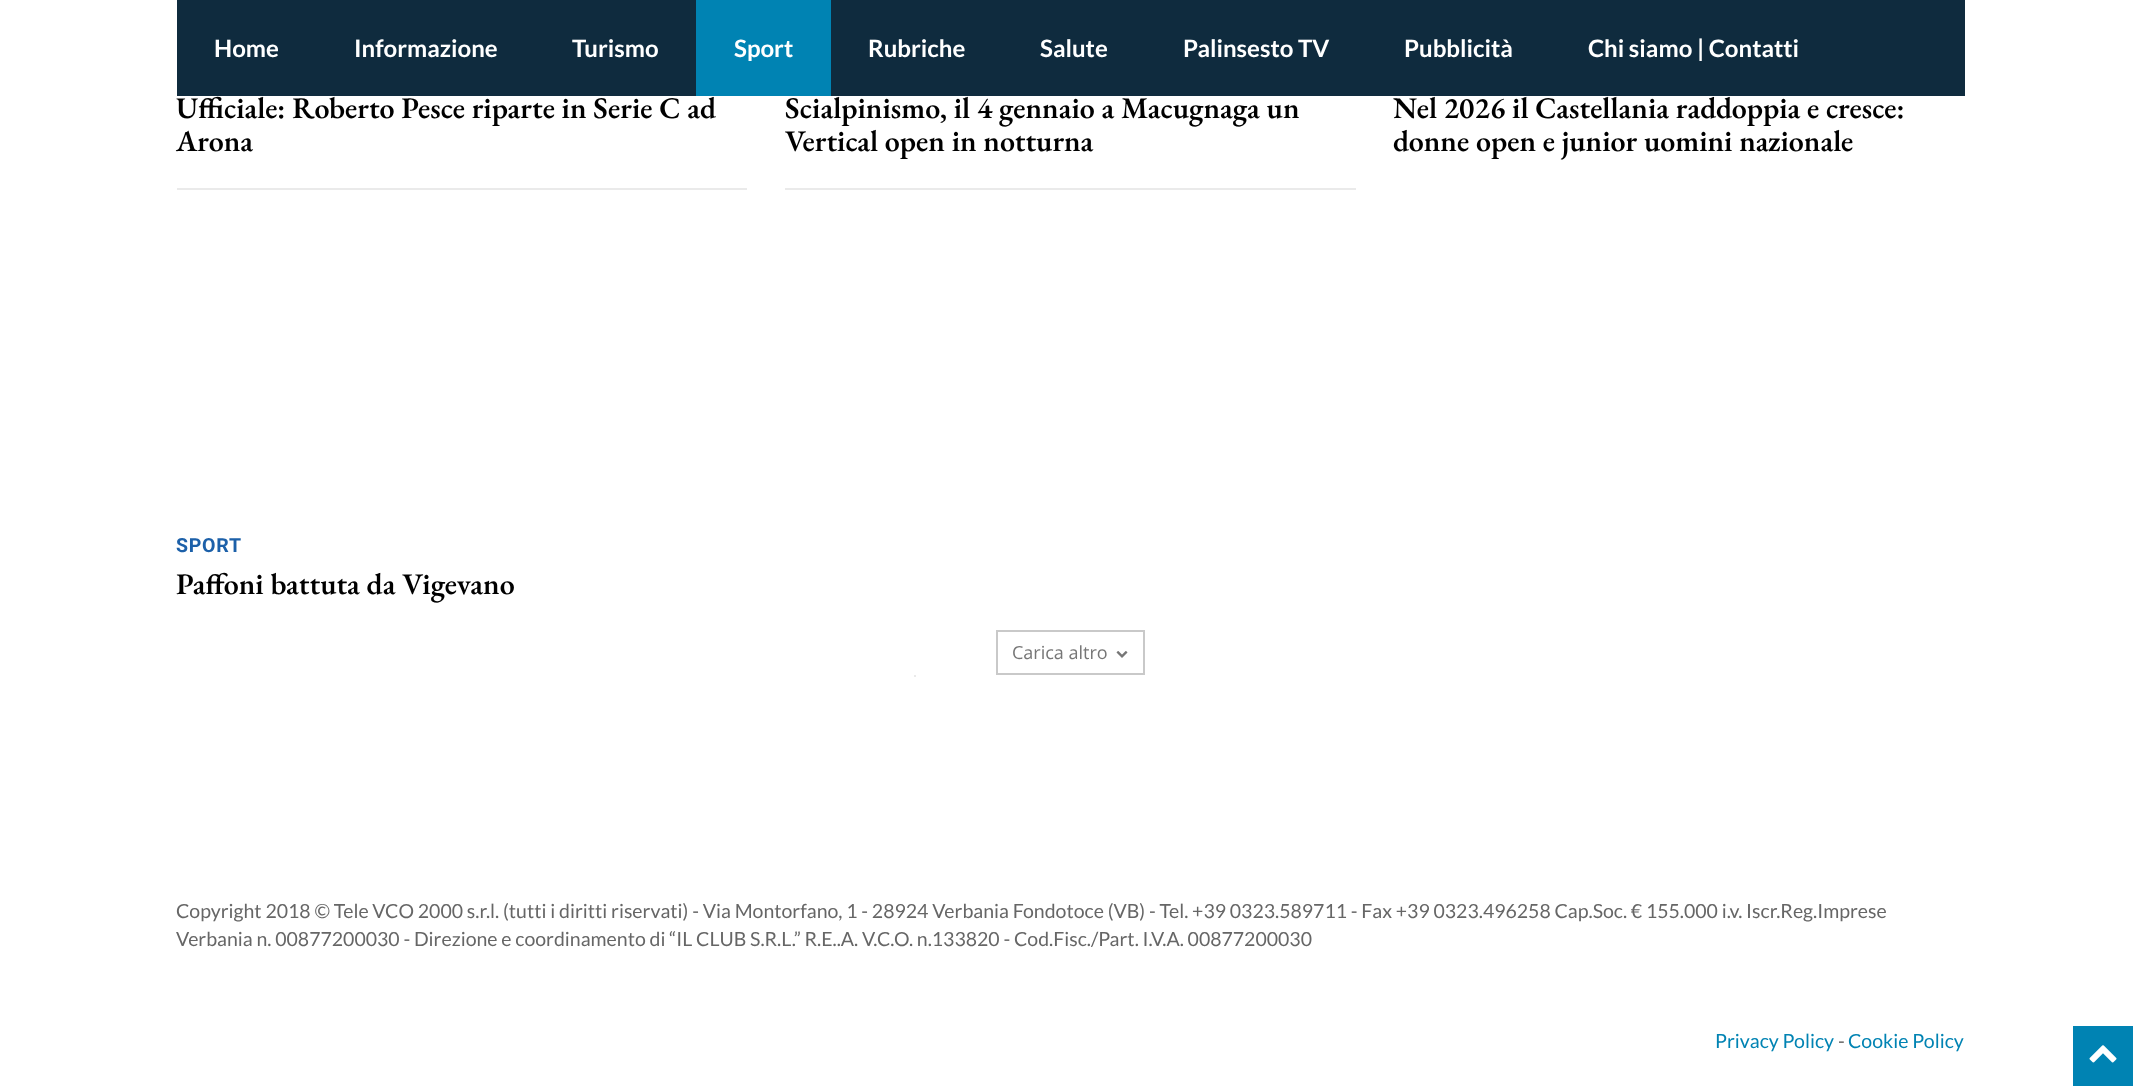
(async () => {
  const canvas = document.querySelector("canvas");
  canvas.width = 2140;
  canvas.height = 1091;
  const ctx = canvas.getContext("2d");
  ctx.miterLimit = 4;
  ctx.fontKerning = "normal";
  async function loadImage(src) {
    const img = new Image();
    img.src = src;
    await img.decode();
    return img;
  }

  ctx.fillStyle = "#ffffff";
  ctx.fillRect(0, 0, 2140, 1091);
  for (const [x, y, w, h, color] of [
    [177, 0, 1788, 96, "#0f2b3e"],
    [696, 0, 135, 96, "#0083b3"],
    [177, 188, 570, 2, "#eaeaea"],
    [785, 188, 571, 2, "#eaeaea"],
  ]) {
    ctx.fillStyle = color;
    ctx.fillRect(x, y, w, h);
  }
  ctx.strokeStyle = "#c9c9c9";
  ctx.lineWidth = 2;
  ctx.strokeRect(997, 631, 147, 43);
  ctx.drawImage(await loadImage("img/1.png"), 1116, 651, 12, 7);
  ctx.fillRect(914, 675, 2, 2);
  ctx.fillStyle = "#0083b3";
  ctx.fillRect(2073, 1026, 60, 60);
  ctx.drawImage(await loadImage("img/2.png"), 2089, 1045, 28, 18);
  ctx.font = "bold 24px Lato";
  ctx.fillStyle = "#ffffff";
  for (const [text, x, y] of [
    ["Home", 214, 57],
    ["Informazione", 354, 57],
    ["Turismo", 572, 57],
    ["Sport", 734, 57],
    ["Rubriche", 868, 57],
    ["Salute", 1040, 57],
    ["Palinsesto TV", 1183, 57],
    ["Pubblicità", 1404, 57],
    ["Chi siamo | Contatti", 1588, 57],
  ]) {
    ctx.fillText(text, x, y);
  }
  ctx.font = "600 30px EB Garamond";
  ctx.fillStyle = "#000000";
  for (const [text, x, y] of [
    ["Ufficiale: Roberto Pesce riparte in Serie C ad", 176, 118],
    ["Arona", 176, 151],
    ["Scialpinismo, il 4 gennaio a Macugnaga un", 785, 118],
    ["Vertical open in notturna", 785, 151],
    ["Nel 2026 il Castellania raddoppia e cresce:", 1393, 118],
    ["donne open e junior uomini nazionale", 1393, 151],
  ]) {
    ctx.fillText(text, x, y);
  }
  ctx.letterSpacing = "0.75px";
  ctx.font = "bold 19.5px Roboto";
  ctx.fillStyle = "#1c60a9";
  ctx.fillText("SPORT", 176, 552);
  ctx.letterSpacing = "0px";
  ctx.font = "600 30px EB Garamond";
  ctx.fillStyle = "#000000";
  ctx.fillText("Paffoni battuta da Vigevano", 176, 594);
  ctx.font = "18px Open Sans";
  ctx.fillStyle = "#767676";
  ctx.fillText("Carica altro", 1012, 659);
  ctx.font = "19.5px Lato";
  ctx.fillStyle = "#666666";
  ctx.fillText("Copyright 2018 © Tele VCO 2000 s.r.l. (tutti i diritti riservati) - Via Montorfano, 1 - 28924 Verbania Fondotoce (VB) - Tel. +39 0323.589711 - Fax +39 0323.496258 Cap.Soc. € 155.000 i.v. Iscr.Reg.Imprese", 176, 918);
  ctx.fillText("Verbania n. 00877200030 - Direzione e coordinamento di “IL CLUB S.R.L.” R.E..A. V.C.O. n.133820 - Cod.Fisc./Part. I.V.A. 00877200030", 176, 946);
  ctx.fillStyle = "#0083b3";
  ctx.fillText("Privacy Policy", 1715, 1048);
  ctx.fillStyle = "#666666";
  ctx.fillText("-", 1838, 1048);
  ctx.fillStyle = "#0083b3";
  ctx.fillText("Cookie Policy", 1848, 1048);
})();
